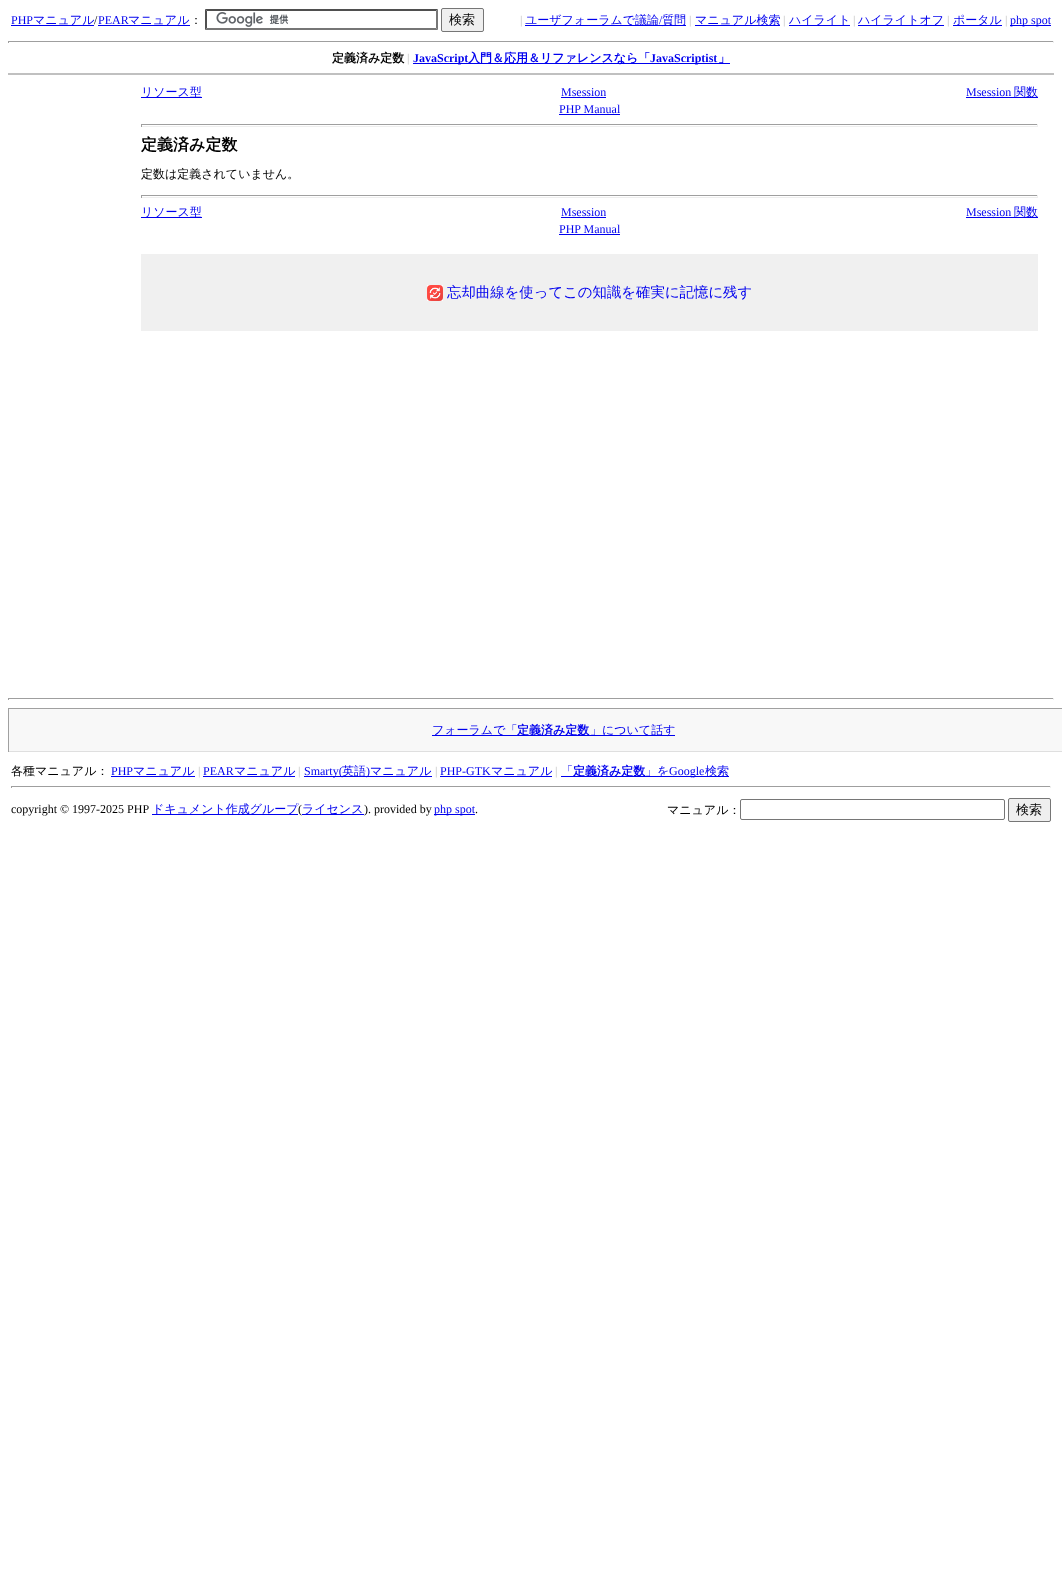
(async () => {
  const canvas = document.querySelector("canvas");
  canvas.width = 1062;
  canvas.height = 1570;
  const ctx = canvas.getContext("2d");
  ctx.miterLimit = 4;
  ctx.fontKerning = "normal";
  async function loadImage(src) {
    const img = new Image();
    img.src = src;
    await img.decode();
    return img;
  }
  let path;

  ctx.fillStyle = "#ffffff";
  ctx.fillRect(0, 0, 1062, 1570);
  ctx.fillStyle = "#0000ee";
  ctx.fillRect(11, 25, 83, 1);
  ctx.fillRect(98, 25, 92, 1);
  ctx.drawImage(await loadImage("img/1.png"), 216, 12, 73, 15);
  ctx.fillStyle = "#4f4f4f";
  path = new Path2D("M205 9H438L436 11H207Z");
  ctx.fill(path);
  ctx.fillStyle = "#767676";
  path = new Path2D("M438 9V30L436 28V11Z");
  ctx.fill(path);
  path = new Path2D("M438 30H205L207 28H436Z");
  ctx.fill(path);
  ctx.fillStyle = "#4f4f4f";
  path = new Path2D("M205 30V9L207 11V28Z");
  ctx.fill(path);
  ctx.fillStyle = "#efefef";
  ctx.beginPath();
  ctx.roundRect(441.5, 8.5, 42, 23, 1.5);
  ctx.fill();
  ctx.strokeStyle = "#767676";
  ctx.stroke();
  for (const [x, y, w, h, color] of [
    [525, 25, 161, 1, "#0000ee"],
    [695, 25, 85, 1, "#0000ee"],
    [789, 25, 61, 1, "#0000ee"],
    [858, 25, 86, 1, "#0000ee"],
    [953, 25, 49, 1, "#0000ee"],
    [1010, 25, 41, 1, "#0000ee"],
    [8, 41, 1046, 1, "#9f9f9f"],
    [1053, 41, 1, 2, "#eeeeee"],
    [8, 41, 1, 2, "#9f9f9f"],
    [413, 63, 317, 1, "#0000ee"],
    [9, 74, 1044, 1, "#c0c0c0"],
    [8, 73, 1046, 1, "#c0c0c0"],
    [1053, 73, 1, 2, "#c0c0c0"],
    [8, 73, 1, 2, "#c0c0c0"],
    [141, 97, 61, 1, "#0000ee"],
    [561, 97, 45, 1, "#0000ee"],
    [966, 97, 72, 1, "#0000ee"],
    [559, 114, 61, 1, "#0000ee"],
    [141, 124, 897, 1, "#9f9f9f"],
    [1037, 124, 1, 3, "#eeeeee"],
    [141, 126, 897, 1, "#eeeeee"],
    [141, 124, 1, 3, "#9f9f9f"],
    [141, 195, 897, 1, "#9f9f9f"],
    [1037, 195, 1, 3, "#eeeeee"],
    [141, 197, 897, 1, "#eeeeee"],
    [141, 195, 1, 3, "#9f9f9f"],
    [141, 217, 61, 1, "#0000ee"],
    [561, 217, 45, 1, "#0000ee"],
    [966, 217, 72, 1, "#0000ee"],
    [559, 234, 61, 1, "#0000ee"],
    [141, 254, 897, 77, "#f0f0f0"],
  ]) {
    ctx.fillStyle = color;
    ctx.fillRect(x, y, w, h);
  }
  ctx.drawImage(await loadImage("img/2.png"), 427, 285, 16, 16);
  for (const [x, y, w, h, color] of [
    [8, 698, 1046, 1, "#9f9f9f"],
    [1053, 698, 1, 2, "#eeeeee"],
    [8, 698, 1, 2, "#9f9f9f"],
    [9, 709, 1053, 42, "#f8f8f8"],
    [8, 708, 1054, 1, "#a0a0a0"],
    [8, 751, 1054, 1, "#dfdfdf"],
    [8, 708, 1, 44, "#a0a0a0"],
    [432, 735, 243, 1, "#0000ee"],
    [111, 776, 84, 1, "#0000ee"],
    [203, 776, 92, 1, "#0000ee"],
    [304, 776, 128, 1, "#0000ee"],
    [440, 776, 112, 1, "#0000ee"],
    [561, 776, 168, 1, "#0000ee"],
    [11, 786, 1040, 1, "#9f9f9f"],
    [1050, 786, 1, 2, "#eeeeee"],
    [11, 786, 1, 2, "#9f9f9f"],
    [152, 814, 146, 1, "#0000ee"],
    [302, 814, 62, 1, "#0000ee"],
    [434, 814, 41, 1, "#0000ee"],
  ]) {
    ctx.fillStyle = color;
    ctx.fillRect(x, y, w, h);
  }
  ctx.beginPath();
  ctx.roundRect(740.5, 799.5, 264, 20, 1.5);
  ctx.stroke();
  ctx.fillStyle = "#efefef";
  ctx.beginPath();
  ctx.roundRect(1008.5, 798.5, 42, 23, 1.5);
  ctx.fill();
  ctx.stroke();
  ctx.font = "12px Liberation Serif";
  ctx.fillStyle = "#0000ee";
  ctx.fillText("PHP", 11, 24);
  ctx.font = "500 12px WenQuanYi Zen Hei";
  ctx.fillText("マニュアル", 33, 24);
  ctx.font = "12px Liberation Serif";
  ctx.fillStyle = "#000000";
  ctx.fillText("/", 94, 24);
  ctx.fillStyle = "#0000ee";
  ctx.fillText("PEAR", 98, 24);
  ctx.font = "500 12px WenQuanYi Zen Hei";
  ctx.fillText("マニュアル", 128, 24);
  ctx.fillStyle = "#000000";
  ctx.fillText("：", 190, 24);
  ctx.font = "500 13px WenQuanYi Zen Hei";
  ctx.fillText("検索", 449, 24);
  ctx.font = "12px Liberation Serif";
  ctx.fillStyle = "#c0c0c0";
  ctx.fillText("|", 520, 24);
  ctx.font = "500 12px WenQuanYi Zen Hei";
  ctx.fillStyle = "#0000ee";
  ctx.fillText("ユーザフォーラムで議論", 525, 24);
  ctx.font = "12px Liberation Serif";
  ctx.fillText("/", 659, 24);
  ctx.font = "500 12px WenQuanYi Zen Hei";
  ctx.fillText("質問", 662, 24);
  ctx.font = "12px Liberation Serif";
  ctx.fillStyle = "#c0c0c0";
  ctx.fillText("|", 689, 24);
  ctx.font = "500 12px WenQuanYi Zen Hei";
  ctx.fillStyle = "#0000ee";
  ctx.fillText("マニュアル検索", 695, 24);
  ctx.font = "12px Liberation Serif";
  ctx.fillStyle = "#c0c0c0";
  ctx.fillText("|", 783, 24);
  ctx.font = "500 12px WenQuanYi Zen Hei";
  ctx.fillStyle = "#0000ee";
  ctx.fillText("ハイライト", 789, 24);
  ctx.font = "12px Liberation Serif";
  ctx.fillStyle = "#c0c0c0";
  ctx.fillText("|", 853, 24);
  ctx.font = "500 12px WenQuanYi Zen Hei";
  ctx.fillStyle = "#0000ee";
  ctx.fillText("ハイライトオフ", 858, 24);
  ctx.font = "12px Liberation Serif";
  ctx.fillStyle = "#c0c0c0";
  ctx.fillText("|", 947, 24);
  ctx.font = "500 12px WenQuanYi Zen Hei";
  ctx.fillStyle = "#0000ee";
  ctx.fillText("ポータル", 953, 24);
  ctx.font = "12px Liberation Serif";
  ctx.fillStyle = "#c0c0c0";
  ctx.fillText("|", 1005, 24);
  ctx.fillStyle = "#0000ee";
  ctx.fillText("php spot", 1010, 24);
  ctx.font = "bold 12px WenQuanYi Zen Hei";
  ctx.fillStyle = "#000000";
  ctx.fillText("定義済み定数", 332, 62);
  ctx.font = "12px Liberation Serif";
  ctx.fillStyle = "#c0c0c0";
  ctx.fillText("|", 407, 62);
  ctx.font = "bold 12px Liberation Serif";
  ctx.fillStyle = "#0000ee";
  ctx.fillText("JavaScript", 413, 62);
  ctx.font = "bold 12px WenQuanYi Zen Hei";
  ctx.fillText("入門＆応用＆リファレンスなら「", 468, 62);
  ctx.font = "bold 12px Liberation Serif";
  ctx.fillText("JavaScriptist", 650, 62);
  ctx.font = "bold 12px WenQuanYi Zen Hei";
  ctx.fillText("」", 718, 62);
  ctx.font = "500 12px WenQuanYi Zen Hei";
  ctx.fillText("リソース型", 141, 96);
  ctx.font = "12px Liberation Serif";
  ctx.fillText("Msession", 561, 96);
  ctx.fillText("Msession", 966, 96);
  ctx.font = "500 12px WenQuanYi Zen Hei";
  ctx.fillText("関数", 1014, 96);
  ctx.font = "12px Liberation Serif";
  ctx.fillText("PHP Manual", 559, 113);
  ctx.font = "bold 16px WenQuanYi Zen Hei";
  ctx.fillStyle = "#000000";
  ctx.fillText("定義済み定数", 141, 150);
  ctx.font = "500 12px WenQuanYi Zen Hei";
  ctx.fillText("定数は定義されていません。", 141, 178);
  ctx.fillStyle = "#0000ee";
  ctx.fillText("リソース型", 141, 216);
  ctx.font = "12px Liberation Serif";
  ctx.fillText("Msession", 561, 216);
  ctx.fillText("Msession", 966, 216);
  ctx.font = "500 12px WenQuanYi Zen Hei";
  ctx.fillText("関数", 1014, 216);
  ctx.font = "12px Liberation Serif";
  ctx.fillText("PHP Manual", 559, 233);
  ctx.font = "500 14.4px WenQuanYi Zen Hei";
  ctx.fillText("忘却曲線を使ってこの知識を確実に記憶に残す", 447, 297);
  ctx.font = "500 12px WenQuanYi Zen Hei";
  ctx.fillText("フォーラムで「", 432, 734);
  ctx.font = "bold 12px WenQuanYi Zen Hei";
  ctx.fillText("定義済み定数", 517, 734);
  ctx.font = "500 12px WenQuanYi Zen Hei";
  ctx.fillText("」について話す", 590, 734);
  ctx.fillStyle = "#000000";
  ctx.fillText("各種マニュアル：", 11, 775);
  ctx.font = "12px Liberation Serif";
  ctx.fillStyle = "#0000ee";
  ctx.fillText("PHP", 111, 775);
  ctx.font = "500 12px WenQuanYi Zen Hei";
  ctx.fillText("マニュアル", 133, 775);
  ctx.font = "12px Liberation Serif";
  ctx.fillStyle = "#c0c0c0";
  ctx.fillText("|", 198, 775);
  ctx.fillStyle = "#0000ee";
  ctx.fillText("PEAR", 203, 775);
  ctx.font = "500 12px WenQuanYi Zen Hei";
  ctx.fillText("マニュアル", 234, 775);
  ctx.font = "12px Liberation Serif";
  ctx.fillStyle = "#c0c0c0";
  ctx.fillText("|", 298, 775);
  ctx.fillStyle = "#0000ee";
  ctx.fillText("Smarty(", 304, 775);
  ctx.font = "500 12px WenQuanYi Zen Hei";
  ctx.fillText("英語", 342, 775);
  ctx.font = "12px Liberation Serif";
  ctx.fillText(")", 366, 775);
  ctx.font = "500 12px WenQuanYi Zen Hei";
  ctx.fillText("マニュアル", 370, 775);
  ctx.font = "12px Liberation Serif";
  ctx.fillStyle = "#c0c0c0";
  ctx.fillText("|", 435, 775);
  ctx.fillStyle = "#0000ee";
  ctx.fillText("PHP-GTK", 440, 775);
  ctx.font = "500 12px WenQuanYi Zen Hei";
  ctx.fillText("マニュアル", 491, 775);
  ctx.font = "12px Liberation Serif";
  ctx.fillStyle = "#c0c0c0";
  ctx.fillText("|", 555, 775);
  ctx.font = "500 12px WenQuanYi Zen Hei";
  ctx.fillStyle = "#0000ee";
  ctx.fillText("「", 561, 775);
  ctx.font = "bold 12px WenQuanYi Zen Hei";
  ctx.fillText("定義済み定数", 573, 775);
  ctx.font = "500 12px WenQuanYi Zen Hei";
  ctx.fillText("」を", 645, 775);
  ctx.font = "12px Liberation Serif";
  ctx.fillText("Google", 669, 775);
  ctx.font = "500 12px WenQuanYi Zen Hei";
  ctx.fillText("検索", 705, 775);
  ctx.font = "12px Liberation Serif";
  ctx.fillStyle = "#000000";
  ctx.fillText("copyright © 1997-2025 PHP", 11, 813);
  ctx.font = "500 12px WenQuanYi Zen Hei";
  ctx.fillStyle = "#0000ee";
  ctx.fillText("ドキュメント作成グループ", 152, 813);
  ctx.font = "12px Liberation Serif";
  ctx.fillStyle = "#000000";
  ctx.fillText("(", 298, 813);
  ctx.font = "500 12px WenQuanYi Zen Hei";
  ctx.fillStyle = "#0000ee";
  ctx.fillText("ライセンス", 302, 813);
  ctx.font = "12px Liberation Serif";
  ctx.fillStyle = "#000000";
  ctx.fillText("). provided by", 364, 813);
  ctx.fillStyle = "#0000ee";
  ctx.fillText("php spot", 434, 813);
  ctx.fillStyle = "#000000";
  ctx.fillText(".", 475, 813);
  ctx.font = "500 12px WenQuanYi Zen Hei";
  ctx.fillText("マニュアル：", 667, 814);
  ctx.font = "500 13px WenQuanYi Zen Hei";
  ctx.fillText("検索", 1016, 814);
})();
